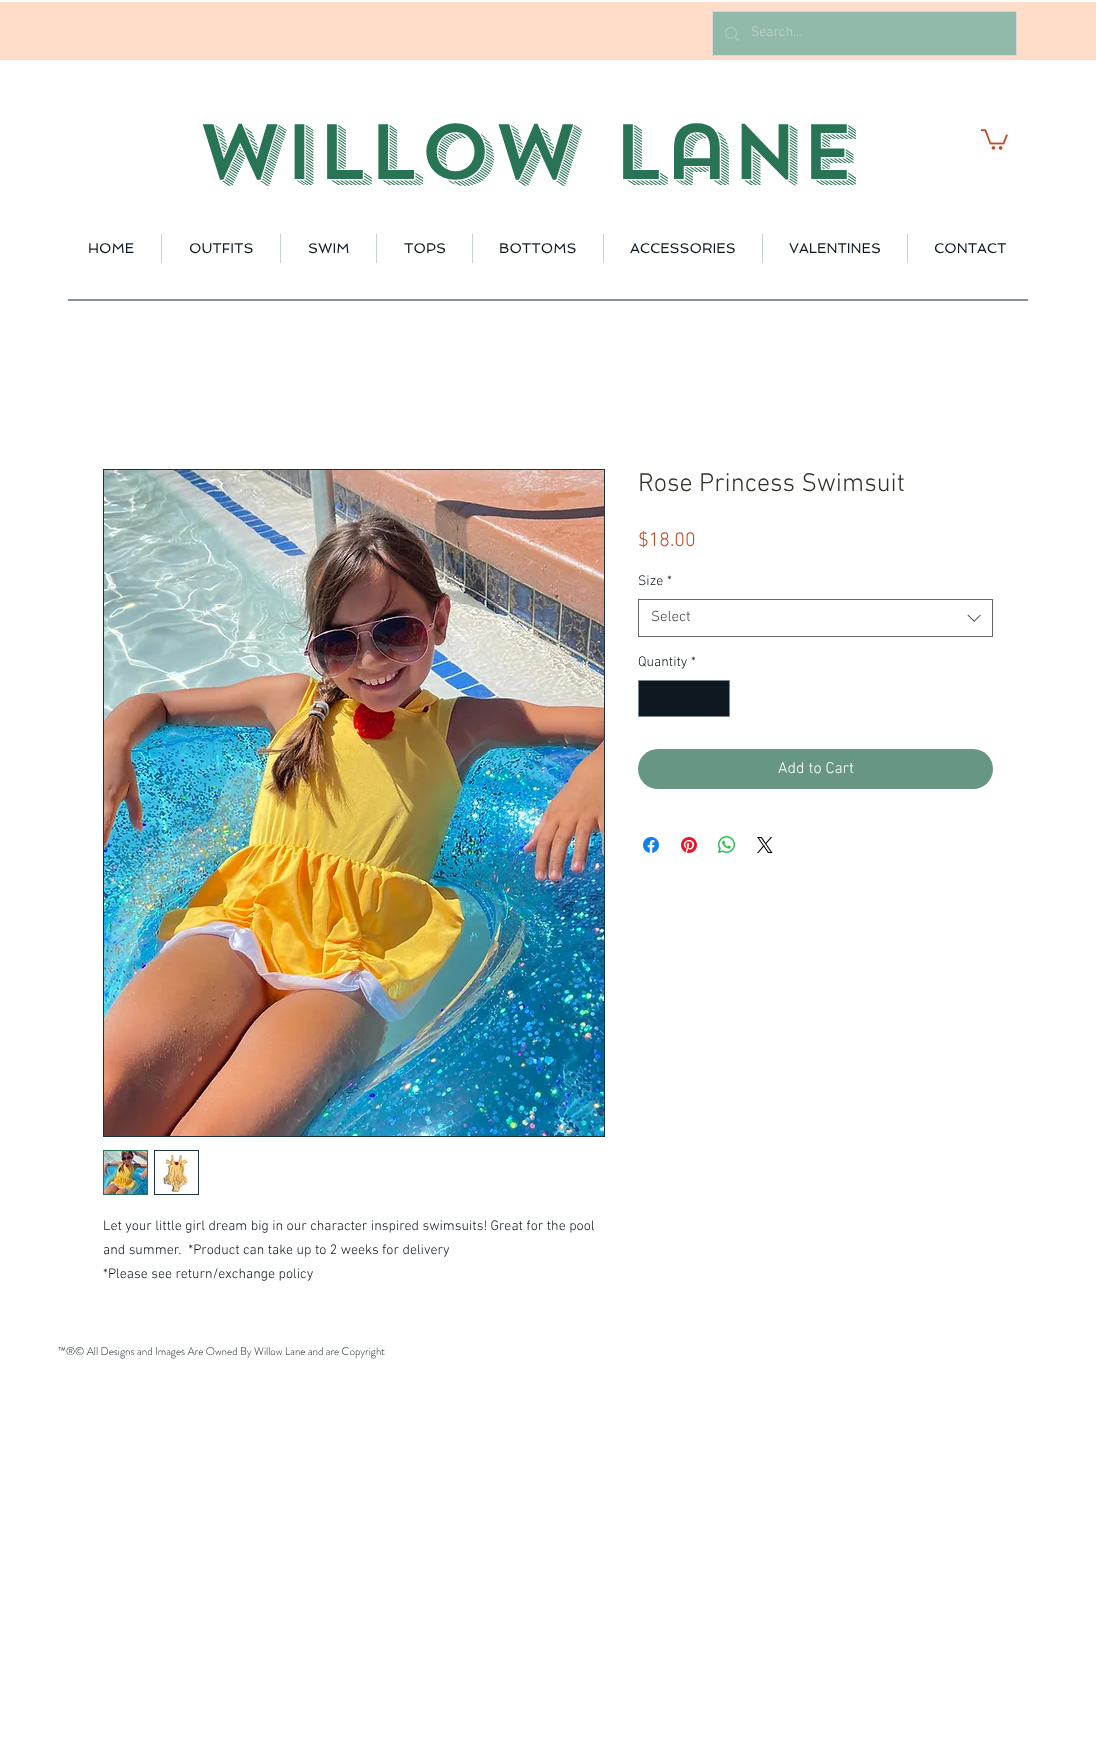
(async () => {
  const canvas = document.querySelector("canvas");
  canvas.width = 1096;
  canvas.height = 1757;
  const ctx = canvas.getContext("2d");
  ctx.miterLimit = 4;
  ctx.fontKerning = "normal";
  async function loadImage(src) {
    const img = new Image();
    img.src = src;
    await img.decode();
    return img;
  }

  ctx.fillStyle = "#ffffff";
  ctx.fillRect(0, 0, 1096, 1757);
  ctx.fillStyle = "#ffddc9";
  ctx.fillRect(0, 2, 1096, 58);
  ctx.strokeStyle = "#dcd5d3";
  ctx.strokeRect(712.5, 11.5, 304, 44);
  ctx.fillStyle = "#92baaa";
  ctx.fillRect(713, 12, 303, 43);
  ctx.drawImage(await loadImage("img/1.png"), 725, 27, 14, 14);
  ctx.drawImage(await loadImage("img/2.png"), 981, 129, 27, 21);
  for (const [x, y, w, h, color] of [
    [161, 234, 1, 29, "#c5d0d9"],
    [280, 234, 1, 29, "#c5d0d9"],
    [376, 234, 1, 29, "#c5d0d9"],
    [472, 234, 1, 29, "#c5d0d9"],
    [603, 234, 1, 29, "#c5d0d9"],
    [762, 234, 1, 29, "#c5d0d9"],
    [907, 234, 1, 29, "#c5d0d9"],
    [68, 299, 960, 2, "#8293a1"],
  ]) {
    ctx.fillStyle = color;
    ctx.fillRect(x, y, w, h);
  }
  ctx.strokeStyle = "#666666";
  ctx.strokeRect(638.5, 599.5, 354, 37);
  ctx.drawImage(await loadImage("img/3.png"), 967, 614, 14, 8);
  ctx.fillStyle = "#0e1821";
  ctx.beginPath();
  ctx.rect(638.5, 680.5, 91, 36);
  ctx.fill();
  ctx.strokeStyle = "#7c868f";
  ctx.stroke();
  ctx.fillStyle = "#679783";
  ctx.beginPath();
  ctx.roundRect(638, 749, 355, 40, 20);
  ctx.fill();
  ctx.drawImage(await loadImage("img/4.png"), 643, 837, 16, 16);
  ctx.drawImage(await loadImage("img/5.png"), 681, 837, 16, 16);
  ctx.drawImage(await loadImage("img/6.png"), 718, 836, 17, 17);
  ctx.drawImage(await loadImage("img/7.png"), 757, 837, 16, 16);
  ctx.strokeStyle = "#1c3142";
  ctx.strokeRect(103.5, 469.5, 501, 667);
  ctx.drawImage(await loadImage("img/8.png"), 104, 470, 500, 666);
  ctx.strokeStyle = "#2a7456";
  ctx.strokeRect(103.5, 1150.5, 44, 44);
  ctx.drawImage(await loadImage("img/9.png"), 104, 1151, 43, 43);
  ctx.fillStyle = "#1c3142";
  ctx.fillRect(154, 1150, 45, 45);
  ctx.drawImage(await loadImage("img/10.png"), 155, 1151, 43, 43);
  ctx.font = "300 14px 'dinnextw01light'";
  ctx.fillStyle = "#c5d0d9";
  ctx.fillText("Search...", 751, 36);
  ctx.font = "500 78px 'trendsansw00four'";
  ctx.fillStyle = "#2a7456";
  ctx.fillText("Willow Lane", 197, 179);
  ctx.font = "14px Spinnaker";
  ctx.fillStyle = "#0e1821";
  for (const [text, x, y] of [
    ["HOME", 88, 253],
    ["OUTFITS", 189, 253],
    ["SWIM", 308, 253],
    ["TOPS", 404, 253],
    ["BOTTOMS", 499, 253],
    ["ACCESSORIES", 630, 253],
    ["VALENTINES", 789, 253],
    ["CONTACT", 934, 253],
  ]) {
    ctx.fillText(text, x, y);
  }
  ctx.font = "300 26px 'dinnextw01light'";
  ctx.fillStyle = "#323328";
  ctx.fillText("Rose Princess Swimsuit", 638, 491);
  ctx.font = "300 20px 'dinnextw01light'";
  ctx.fillStyle = "#c14920";
  ctx.fillText("$18.00", 638, 546);
  ctx.font = "300 14px 'dinnextw01light'";
  ctx.fillStyle = "#0e1821";
  ctx.fillText("Size", 638, 585);
  ctx.fillText("*", 667, 585);
  ctx.font = "300 15px 'dinnextw01light'";
  ctx.fillStyle = "#444444";
  ctx.fillText("Select", 651, 621);
  ctx.font = "300 14px 'dinnextw01light'";
  ctx.fillStyle = "#0e1821";
  ctx.fillText("Quantity", 638, 666);
  ctx.fillText("*", 691, 666);
  ctx.font = "300 16px 'dinnextw01light'";
  ctx.fillStyle = "#ffffff";
  ctx.fillText("Add to Cart", 778, 773);
  ctx.font = "300 14px 'dinnextw01light'";
  ctx.fillStyle = "#0e1821";
  for (const [text, x, y] of [
    ["Let your little girl dream big in our character inspired swimsuits! Great for the pool", 103, 1230],
    ["and summer.  *Product can take up to 2 weeks for delivery", 103, 1254],
    ["*Please see return/exchange policy", 103, 1278],
  ]) {
    ctx.fillText(text, x, y);
  }
  ctx.font = "300 11px 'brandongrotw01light'";
  ctx.fillText("™®© All Designs and Images Are Owned By Willow Lane and are Copyright", 58, 1355);
})();
